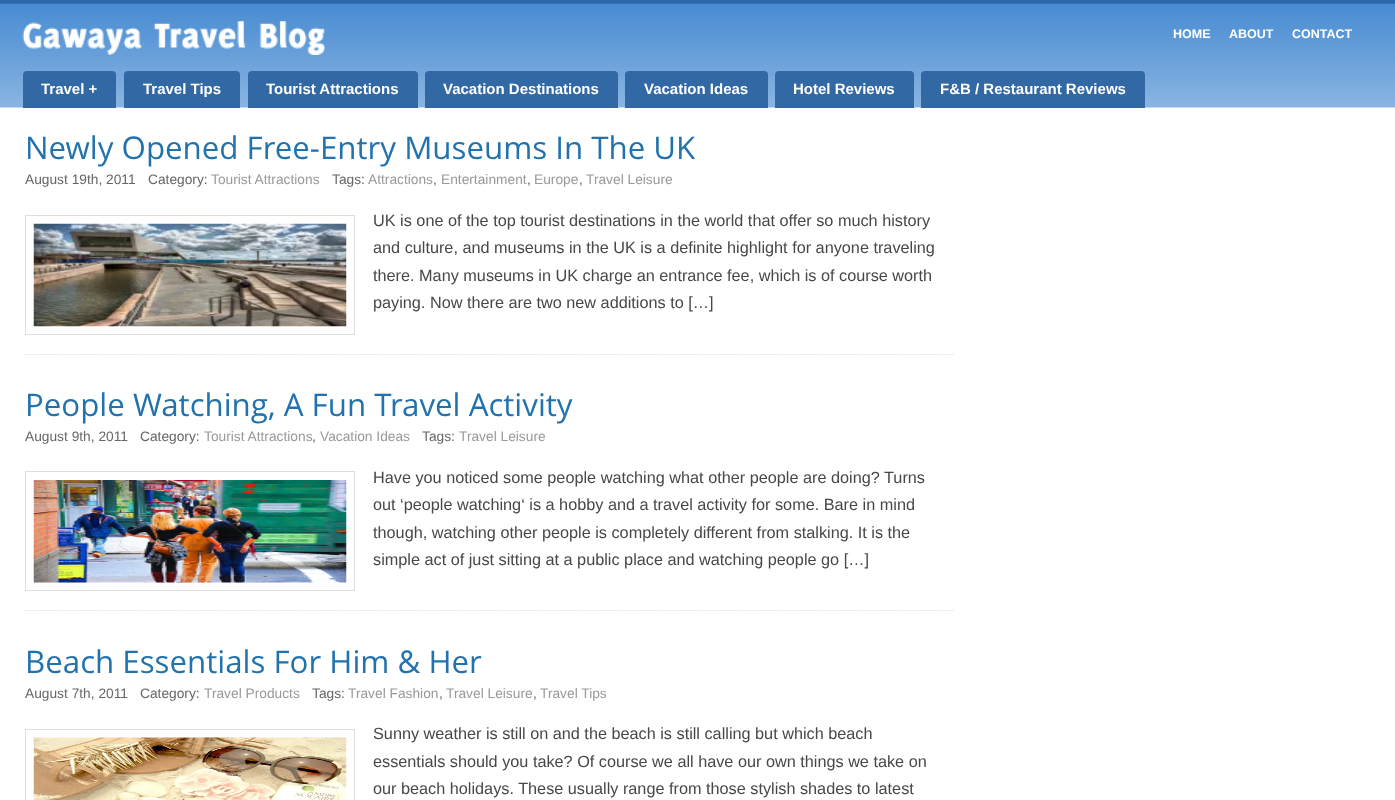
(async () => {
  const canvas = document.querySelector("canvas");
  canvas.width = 1395;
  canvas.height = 800;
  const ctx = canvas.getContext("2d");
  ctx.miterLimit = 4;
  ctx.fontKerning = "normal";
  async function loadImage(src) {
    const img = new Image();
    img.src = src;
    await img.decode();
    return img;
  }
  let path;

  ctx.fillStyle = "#ffffff";
  ctx.fillRect(0, 0, 1395, 800);
  ctx.drawImage(await loadImage("img/1.png"), 0, 0, 1395, 108);
  ctx.drawImage(await loadImage("img/2.png"), 22, 21, 303, 34);
  ctx.fillStyle = "#3269a4";
  ctx.beginPath();
  ctx.roundRect(23, 71, 93, 37, [4, 4, 0, 0]);
  ctx.fill();
  ctx.beginPath();
  ctx.roundRect(124, 71, 116, 37, [4, 4, 0, 0]);
  ctx.fill();
  ctx.beginPath();
  ctx.roundRect(248, 71, 170, 37, [4, 4, 0, 0]);
  ctx.fill();
  ctx.beginPath();
  ctx.roundRect(425, 71, 193, 37, [4, 4, 0, 0]);
  ctx.fill();
  ctx.beginPath();
  ctx.roundRect(625, 71, 143, 37, [4, 4, 0, 0]);
  ctx.fill();
  ctx.beginPath();
  ctx.roundRect(775, 71, 139, 37, [4, 4, 0, 0]);
  ctx.fill();
  ctx.beginPath();
  ctx.roundRect(921, 71, 224, 37, [4, 4, 0, 0]);
  ctx.fill();
  path = new Path2D("M25 354.5H954");
  ctx.strokeStyle = "#dddddd";
  ctx.lineWidth = 1.2;
  ctx.setLineDash([1.25, 1.25]);
  ctx.stroke(path);
  ctx.lineWidth = 1;
  ctx.setLineDash([]);
  ctx.strokeRect(25.5, 215.5, 329, 119);
  ctx.drawImage(await loadImage("img/3.png"), 33, 223, 314, 104);
  path = new Path2D("M25 610.5H954");
  ctx.lineWidth = 1.2;
  ctx.setLineDash([1.25, 1.25]);
  ctx.stroke(path);
  ctx.lineWidth = 1;
  ctx.setLineDash([]);
  ctx.strokeRect(25.5, 471.5, 329, 119);
  ctx.drawImage(await loadImage("img/4.png"), 33, 480, 314, 103);
  ctx.strokeRect(25.5, 729.5, 329, 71);
  ctx.drawImage(await loadImage("img/5.png"), 33, 737, 314, 63);
  ctx.font = "bold 12.5px Liberation Sans";
  ctx.fillStyle = "#ffffff";
  for (const [text, x, y] of [
    ["HOME", 1173, 38],
    ["ABOUT", 1229, 38],
    ["CONTACT", 1292, 38],
  ]) {
    ctx.fillText(text, x, y);
  }
  ctx.font = "bold 15px Liberation Sans";
  for (const [text, x, y] of [
    ["Travel +", 41, 94],
    ["Travel Tips", 143, 94],
    ["Tourist Attractions", 266, 94],
    ["Vacation Destinations", 443, 94],
    ["Vacation Ideas", 644, 94],
    ["Hotel Reviews", 793, 94],
    ["F&B / Restaurant Reviews", 940, 94],
  ]) {
    ctx.fillText(text, x, y);
  }
  ctx.font = "31.25px Open Sans";
  ctx.fillStyle = "#2172ad";
  ctx.fillText("Newly Opened Free-Entry Museums In The UK", 25, 159);
  ctx.font = "13.75px Liberation Sans";
  ctx.fillStyle = "#666666";
  ctx.fillText("August 19th, 2011", 25, 184);
  ctx.fillText("Category:", 148, 184);
  ctx.fillStyle = "#999999";
  ctx.fillText("Tourist Attractions", 211, 184);
  ctx.fillStyle = "#666666";
  ctx.fillText("Tags:", 332, 184);
  ctx.fillStyle = "#999999";
  ctx.fillText("Attractions", 368, 184);
  ctx.fillStyle = "#666666";
  ctx.fillText(",", 433, 184);
  ctx.fillStyle = "#999999";
  ctx.fillText("Entertainment", 441, 184);
  ctx.fillStyle = "#666666";
  ctx.fillText(",", 527, 184);
  ctx.fillStyle = "#999999";
  ctx.fillText("Europe", 534, 184);
  ctx.fillStyle = "#666666";
  ctx.fillText(",", 579, 184);
  ctx.fillStyle = "#999999";
  ctx.fillText("Travel Leisure", 586, 184);
  ctx.font = "16.25px Liberation Sans";
  ctx.fillStyle = "#474747";
  for (const [text, x, y] of [
    ["UK is one of the top tourist destinations in the world that offer so much history", 373, 226],
    ["and culture, and museums in the UK is a definite highlight for anyone traveling", 373, 253],
    ["there. Many museums in UK charge an entrance fee, which is of course worth", 373, 281],
    ["paying. Now there are two new additions to […]", 373, 308],
  ]) {
    ctx.fillText(text, x, y);
  }
  ctx.font = "31.25px Open Sans";
  ctx.fillStyle = "#2172ad";
  ctx.fillText("People Watching, A Fun Travel Activity", 25, 416);
  ctx.font = "13.75px Liberation Sans";
  ctx.fillStyle = "#666666";
  ctx.fillText("August 9th, 2011", 25, 441);
  ctx.fillText("Category:", 140, 441);
  ctx.fillStyle = "#999999";
  ctx.fillText("Tourist Attractions", 204, 441);
  ctx.fillStyle = "#666666";
  ctx.fillText(",", 312, 441);
  ctx.fillStyle = "#999999";
  ctx.fillText("Vacation Ideas", 320, 441);
  ctx.fillStyle = "#666666";
  ctx.fillText("Tags:", 422, 441);
  ctx.fillStyle = "#999999";
  ctx.fillText("Travel Leisure", 459, 441);
  ctx.font = "16.25px Liberation Sans";
  ctx.fillStyle = "#474747";
  for (const [text, x, y] of [
    ["Have you noticed some people watching what other people are doing? Turns", 373, 483],
    ["out ‘people watching‘ is a hobby and a travel activity for some. Bare in mind", 373, 510],
    ["though, watching other people is completely different from stalking. It is the", 373, 538],
    ["simple act of just sitting at a public place and watching people go […]", 373, 565],
  ]) {
    ctx.fillText(text, x, y);
  }
  ctx.font = "31.25px Open Sans";
  ctx.fillStyle = "#2172ad";
  ctx.fillText("Beach Essentials For Him & Her", 25, 673);
  ctx.font = "13.75px Liberation Sans";
  ctx.fillStyle = "#666666";
  ctx.fillText("August 7th, 2011", 25, 698);
  ctx.fillText("Category:", 140, 698);
  ctx.fillStyle = "#999999";
  ctx.fillText("Travel Products", 204, 698);
  ctx.fillStyle = "#666666";
  ctx.fillText("Tags:", 312, 698);
  ctx.fillStyle = "#999999";
  ctx.fillText("Travel Fashion", 348, 698);
  ctx.fillStyle = "#666666";
  ctx.fillText(",", 439, 698);
  ctx.fillStyle = "#999999";
  ctx.fillText("Travel Leisure", 446, 698);
  ctx.fillStyle = "#666666";
  ctx.fillText(",", 533, 698);
  ctx.fillStyle = "#999999";
  ctx.fillText("Travel Tips", 540, 698);
  ctx.font = "16.25px Liberation Sans";
  ctx.fillStyle = "#474747";
  for (const [text, x, y] of [
    ["Sunny weather is still on and the beach is still calling but which beach", 373, 739],
    ["essentials should you take? Of course we all have our own things we take on", 373, 767],
    ["our beach holidays. These usually range from those stylish shades to latest", 373, 794],
  ]) {
    ctx.fillText(text, x, y);
  }
})();
